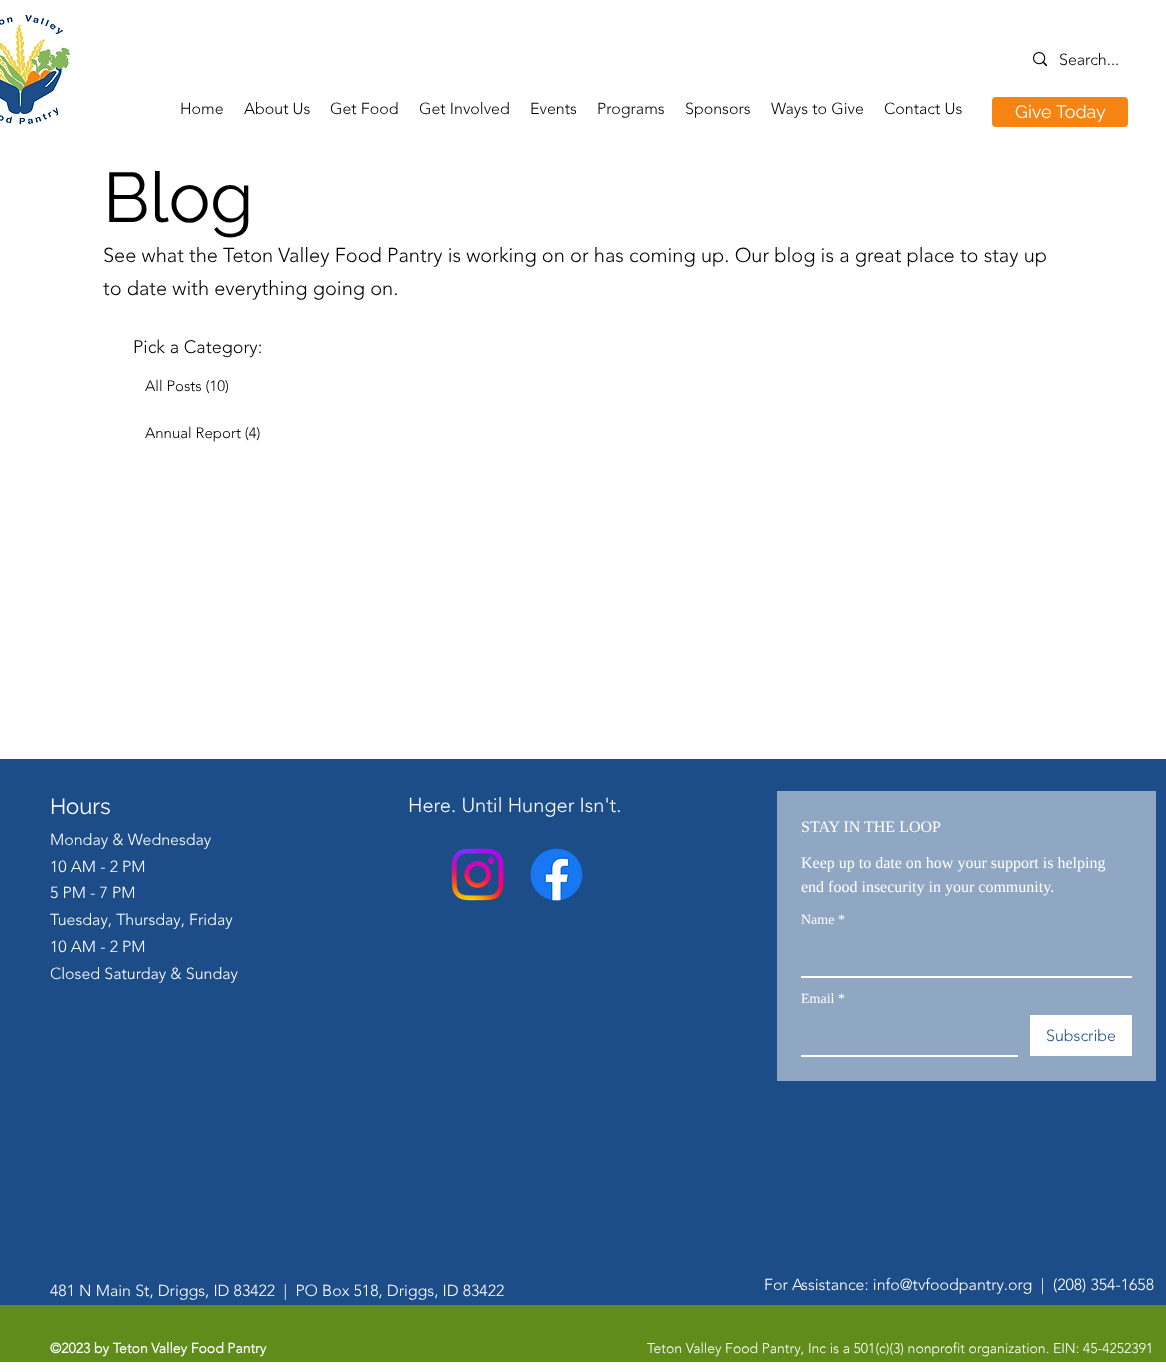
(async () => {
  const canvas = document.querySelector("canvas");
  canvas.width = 1166;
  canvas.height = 1372;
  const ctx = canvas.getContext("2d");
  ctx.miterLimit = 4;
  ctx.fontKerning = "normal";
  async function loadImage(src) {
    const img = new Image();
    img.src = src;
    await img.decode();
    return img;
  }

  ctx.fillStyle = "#ffffff";
  ctx.fillRect(0, 0, 1166, 1372);
  ctx.drawImage(await loadImage("img/1.png"), 0, 14, 70, 111);
  ctx.drawImage(await loadImage("img/2.png"), 1033, 52, 14, 15);
  ctx.fillStyle = "#f78312";
  ctx.beginPath();
  ctx.roundRect(992, 97, 136, 30, 4);
  ctx.fill();
  for (const [x, y, w, h, color] of [
    [0, 759, 1166, 546, "#1c4d88"],
    [777, 791, 379, 290, "#90a7c4"],
    [801, 976, 331, 2, "#ffffff"],
    [1030, 1015, 102, 41, "#ffffff"],
    [801, 1055, 217, 2, "#ffffff"],
  ]) {
    ctx.fillStyle = color;
    ctx.fillRect(x, y, w, h);
  }
  ctx.drawImage(await loadImage("img/3.png"), 451, 848, 53, 53);
  ctx.drawImage(await loadImage("img/4.png"), 530, 848, 53, 53);
  ctx.fillStyle = "#5f8c1b";
  ctx.fillRect(0, 1305, 1166, 57);
  ctx.font = "300 16px 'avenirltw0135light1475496'";
  ctx.fillStyle = "#000000";
  for (const [text, x, y] of [
    ["Search...", 1059, 65],
    ["Home", 180, 114],
    ["About Us", 244, 114],
    ["Get Food", 330, 114],
    ["Get Involved", 419, 114],
    ["Events", 530, 114],
    ["Programs", 597, 114],
    ["Sponsors", 685, 114],
    ["Ways to Give", 771, 114],
    ["Contact Us", 884, 114],
  ]) {
    ctx.fillText(text, x, y);
  }
  ctx.font = "18px Raleway";
  ctx.fillStyle = "#ffffff";
  ctx.fillText("Give Today", 1015, 118);
  ctx.font = "70px Raleway";
  ctx.fillStyle = "#000000";
  ctx.fillText("Blog", 103, 222);
  ctx.font = "300 20px 'avenirltw0135light1475496'";
  ctx.fillText("See what the Teton Valley Food Pantry is working on or has coming up. Our blog is a great place to stay up", 103, 262);
  ctx.fillText("to date with everything going on.", 103, 295);
  ctx.font = "300 18px 'avenirltw0135light1475496'";
  ctx.fillText("Pick a Category:", 133, 353);
  ctx.font = "300 15px 'avenirltw0135light1475496'";
  ctx.fillText("All Posts (10)", 145, 391);
  ctx.fillText("Annual Report (4)", 145, 438);
  ctx.font = "22px Raleway";
  ctx.fillStyle = "#ffffff";
  ctx.fillText("Hours", 50, 814);
  ctx.font = "300 16px 'avenirltw0135light1475496'";
  for (const [text, x, y] of [
    ["Monday & Wednesday", 50, 845],
    ["10 AM - 2 PM", 50, 872],
    ["5 PM - 7 PM", 50, 898],
    ["Tuesday, Thursday, Friday", 50, 925],
    ["10 AM - 2 PM", 50, 952],
    ["Closed Saturday & Sunday", 50, 979],
  ]) {
    ctx.fillText(text, x, y);
  }
  ctx.font = "300 20px 'avenirltw0135light1475496'";
  ctx.fillText("Here. Until Hunger Isn't.", 408, 812);
  ctx.font = "16px Liberation Serif";
  for (const [text, x, y] of [
    ["STAY IN THE LOOP", 801, 832],
    ["Keep up to date on how your support is helping", 801, 868],
    ["end food insecurity in your community.", 801, 892],
  ]) {
    ctx.fillText(text, x, y);
  }
  ctx.font = "14px Liberation Serif";
  for (const [text, x, y] of [
    ["Name", 801, 924],
    ["*", 838, 924],
    ["Email", 801, 1003],
    ["*", 838, 1003],
  ]) {
    ctx.fillText(text, x, y);
  }
  ctx.font = "300 16px 'avenirltw0135light1475496'";
  ctx.fillStyle = "#1c4d88";
  ctx.fillText("Subscribe", 1046, 1041);
  ctx.fillStyle = "#ffffff";
  for (const [text, x, y] of [
    ["481 N Main St, Driggs, ID 83422  |  PO Box 518, Driggs, ID 83422", 50, 1296],
    ["For Assistance: info@tvfoodpantry.org  |", 764, 1290],
    ["(208) 354-1658", 1053, 1290],
  ]) {
    ctx.fillText(text, x, y);
  }
  ctx.font = "bold 14px 'avenirltw0135light1475496'";
  ctx.fillText("©2023 by Teton Valley Food Pantry", 50, 1353);
  ctx.font = "300 14px 'avenirltw0135light1475496'";
  ctx.fillText("Teton Valley Food Pantry, Inc is a 501(c)(3) nonprofit organization. EIN: 45-4252391", 647, 1353);
})();
